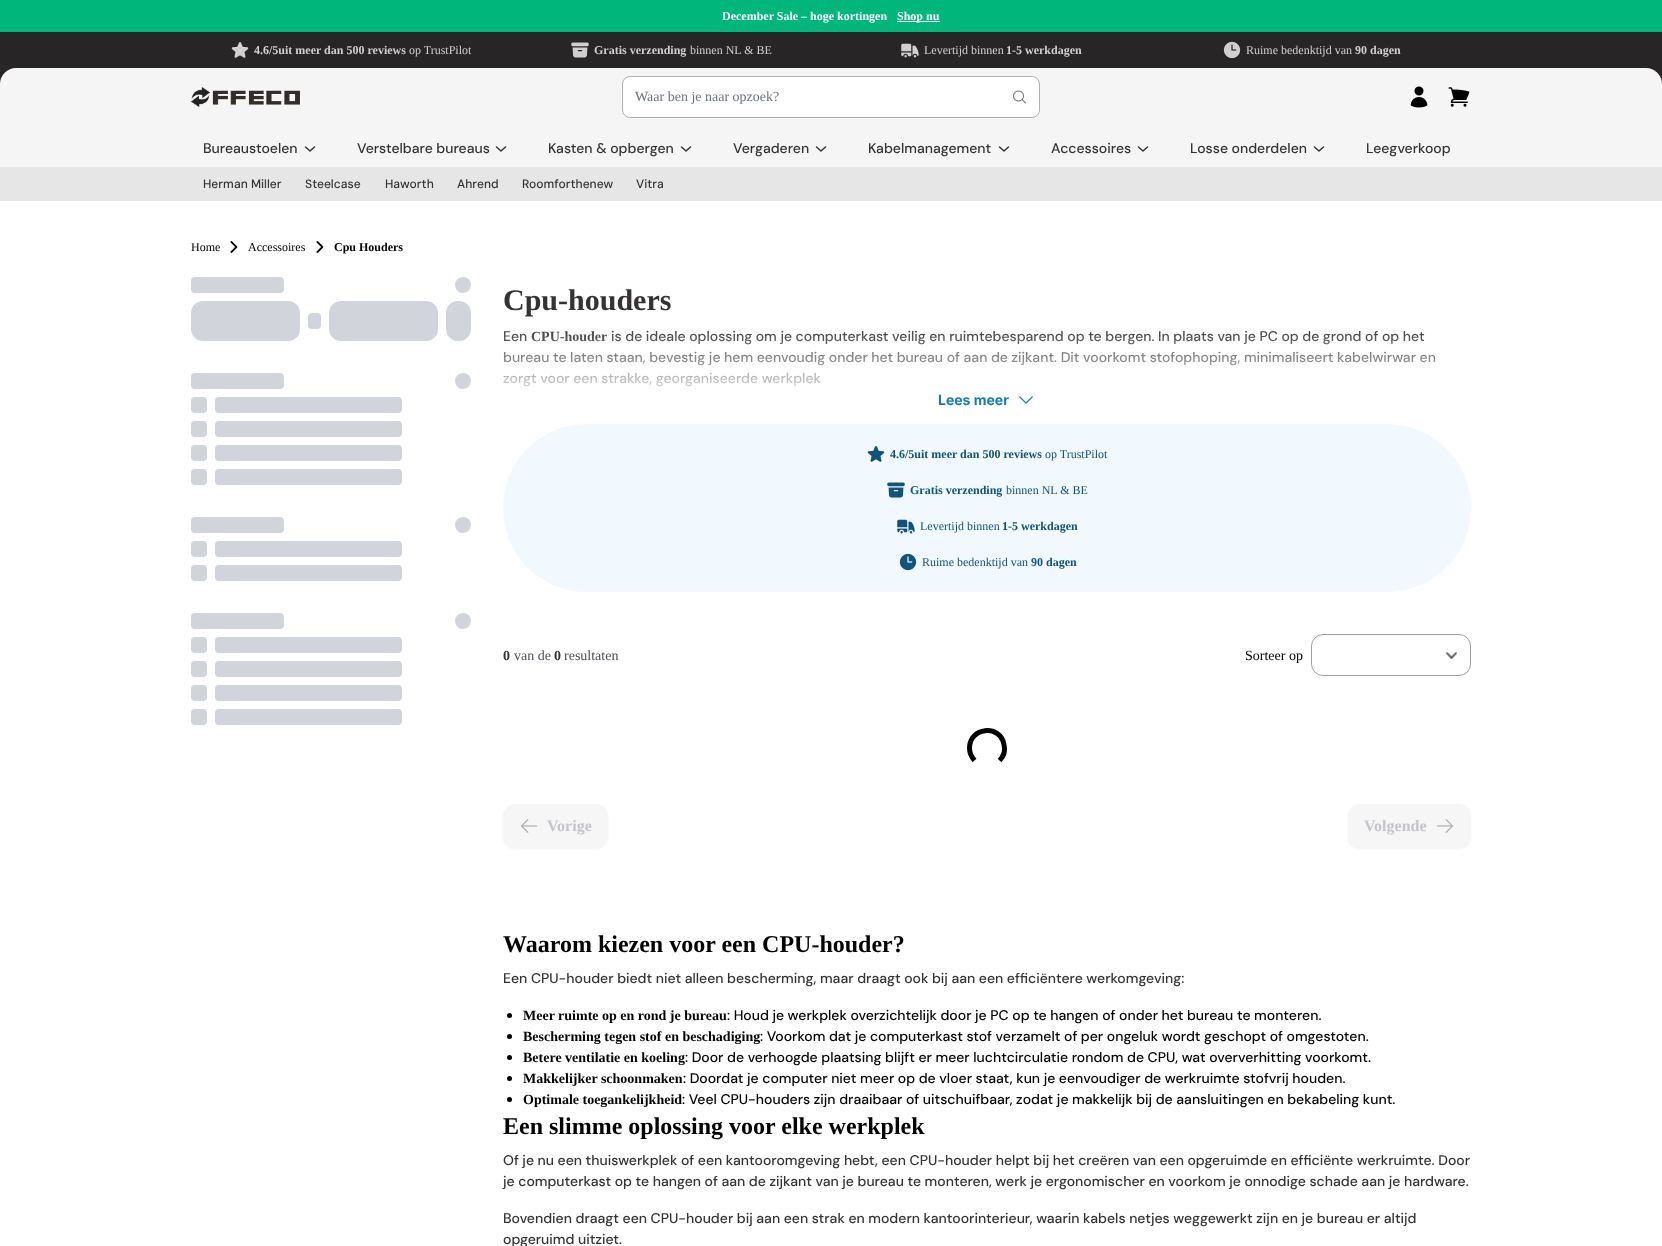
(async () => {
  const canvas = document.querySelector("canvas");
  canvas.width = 1662;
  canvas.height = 1246;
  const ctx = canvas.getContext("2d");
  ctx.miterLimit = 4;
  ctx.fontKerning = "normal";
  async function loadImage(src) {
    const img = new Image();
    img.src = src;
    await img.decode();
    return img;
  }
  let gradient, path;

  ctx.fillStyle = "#ffffff";
  ctx.fillRect(0, 0, 1662, 1246);
  for (const [x, y, w, h, color] of [
    [0, 32, 1662, 52, "#272526"],
    [0, 0, 1662, 32, "#00b67a"],
    [897, 21, 43, 1, "#ffffff"],
  ]) {
    ctx.fillStyle = color;
    ctx.fillRect(x, y, w, h);
  }
  ctx.drawImage(await loadImage("img/1.png"), 231, 42, 18, 16);
  ctx.drawImage(await loadImage("img/2.png"), 571, 42, 18, 16);
  ctx.drawImage(await loadImage("img/3.png"), 901, 43, 18, 15);
  ctx.drawImage(await loadImage("img/4.png"), 1223, 41, 18, 18);
  ctx.fillStyle = "#f6f5f6";
  ctx.beginPath();
  ctx.roundRect(0, 68, 1662, 58, [16, 16, 0, 0]);
  ctx.fill();
  ctx.drawImage(await loadImage("img/5.png"), 191, 87, 109, 20);
  ctx.fillStyle = "#ffffff";
  ctx.beginPath();
  ctx.roundRect(622.5, 76.5, 417, 41, 7.5);
  ctx.fill();
  ctx.strokeStyle = "#b2aeb1";
  ctx.stroke();
  ctx.drawImage(await loadImage("img/6.png"), 1013, 90, 13, 14);
  ctx.drawImage(await loadImage("img/7.png"), 1410, 86, 18, 22);
  ctx.drawImage(await loadImage("img/8.png"), 1448, 87, 22, 20);
  ctx.fillStyle = "#f6f5f6";
  ctx.fillRect(0, 126, 1662, 41);
  path = new Path2D("M314.5 147L310 151L305.5 147");
  ctx.strokeStyle = "#343233";
  ctx.lineWidth = 1.5;
  ctx.lineCap = "round";
  ctx.lineJoin = "round";
  ctx.stroke(path);
  path = new Path2D("M505.5 147L501 151L496.5 147");
  ctx.stroke(path);
  path = new Path2D("M690.5 147L686 151L681.5 147");
  ctx.stroke(path);
  path = new Path2D("M825.5 147L821 151L816.5 147");
  ctx.stroke(path);
  path = new Path2D("M1008.5 147L1004 151L999.5 147");
  ctx.stroke(path);
  path = new Path2D("M1147.5 147L1143 151L1138.5 147");
  ctx.stroke(path);
  path = new Path2D("M1323.5 147L1319 151L1314.5 147");
  ctx.stroke(path);
  ctx.fillStyle = "#e7e6e7";
  ctx.fillRect(0, 167, 1662, 34);
  ctx.drawImage(await loadImage("img/9.png"), 230, 241, 8, 12);
  ctx.drawImage(await loadImage("img/9.png"), 316, 241, 8, 12);
  ctx.fillStyle = "#d1d5db";
  ctx.beginPath();
  ctx.roundRect(191, 277, 93, 16, 4);
  ctx.fill();
  ctx.beginPath();
  ctx.arc(463, 285, 8, 0, Math.PI * 2);
  ctx.fill();
  ctx.beginPath();
  ctx.roundRect(191, 301, 109, 40, 12);
  ctx.fill();
  ctx.beginPath();
  ctx.roundRect(308, 313, 13, 16, 4);
  ctx.fill();
  ctx.beginPath();
  ctx.roundRect(329, 301, 109, 40, 12);
  ctx.fill();
  ctx.beginPath();
  ctx.roundRect(446, 301, 25, 40, 12);
  ctx.fill();
  ctx.beginPath();
  ctx.roundRect(191, 373, 93, 16, 4);
  ctx.fill();
  ctx.beginPath();
  ctx.arc(463, 381, 8, 0, Math.PI * 2);
  ctx.fill();
  ctx.beginPath();
  ctx.roundRect(191, 397, 16, 16, 4);
  ctx.fill();
  ctx.beginPath();
  ctx.roundRect(215, 397, 187, 16, 4);
  ctx.fill();
  ctx.beginPath();
  ctx.roundRect(191, 421, 16, 16, 4);
  ctx.fill();
  ctx.beginPath();
  ctx.roundRect(215, 421, 187, 16, 4);
  ctx.fill();
  ctx.beginPath();
  ctx.roundRect(191, 445, 16, 16, 4);
  ctx.fill();
  ctx.beginPath();
  ctx.roundRect(215, 445, 187, 16, 4);
  ctx.fill();
  ctx.beginPath();
  ctx.roundRect(191, 469, 16, 16, 4);
  ctx.fill();
  ctx.beginPath();
  ctx.roundRect(215, 469, 187, 16, 4);
  ctx.fill();
  ctx.beginPath();
  ctx.roundRect(191, 517, 93, 16, 4);
  ctx.fill();
  ctx.beginPath();
  ctx.arc(463, 525, 8, 0, Math.PI * 2);
  ctx.fill();
  ctx.beginPath();
  ctx.roundRect(191, 541, 16, 16, 4);
  ctx.fill();
  ctx.beginPath();
  ctx.roundRect(215, 541, 187, 16, 4);
  ctx.fill();
  ctx.beginPath();
  ctx.roundRect(191, 565, 16, 16, 4);
  ctx.fill();
  ctx.beginPath();
  ctx.roundRect(215, 565, 187, 16, 4);
  ctx.fill();
  ctx.beginPath();
  ctx.roundRect(191, 613, 93, 16, 4);
  ctx.fill();
  ctx.beginPath();
  ctx.arc(463, 621, 8, 0, Math.PI * 2);
  ctx.fill();
  ctx.beginPath();
  ctx.roundRect(191, 637, 16, 16, 4);
  ctx.fill();
  ctx.beginPath();
  ctx.roundRect(215, 637, 187, 16, 4);
  ctx.fill();
  ctx.beginPath();
  ctx.roundRect(191, 661, 16, 16, 4);
  ctx.fill();
  ctx.beginPath();
  ctx.roundRect(215, 661, 187, 16, 4);
  ctx.fill();
  ctx.beginPath();
  ctx.roundRect(191, 685, 16, 16, 4);
  ctx.fill();
  ctx.beginPath();
  ctx.roundRect(215, 685, 187, 16, 4);
  ctx.fill();
  ctx.beginPath();
  ctx.roundRect(191, 709, 16, 16, 4);
  ctx.fill();
  ctx.beginPath();
  ctx.roundRect(215, 709, 187, 16, 4);
  ctx.fill();
  ctx.drawImage(await loadImage("img/10.png"), 1019, 396, 14, 8);
  ctx.fillStyle = "#f1f9fe";
  ctx.beginPath();
  ctx.roundRect(503, 424, 968, 168, 84);
  ctx.fill();
  ctx.drawImage(await loadImage("img/11.png"), 867, 446, 18, 16);
  ctx.drawImage(await loadImage("img/12.png"), 887, 482, 18, 16);
  ctx.drawImage(await loadImage("img/13.png"), 897, 519, 18, 15);
  ctx.drawImage(await loadImage("img/14.png"), 899, 553, 18, 18);
  ctx.drawImage(await loadImage("img/15.png"), 1446, 652, 11, 7);
  ctx.beginPath();
  ctx.roundRect(1311.5, 634.5, 159, 41, 11.5);
  ctx.strokeStyle = "#9f9fa9";
  ctx.lineWidth = 1;
  ctx.lineJoin = "miter";
  ctx.stroke();
  path = new Path2D("M974.5 760.5C971.5 757 969.5 752.5 969.5 748C969.5 727 1000 724 1004 744.5C1005.5 750.5 1003.5 756.5 999.5 760.5");
  ctx.strokeStyle = "#000000";
  ctx.lineWidth = 5;
  ctx.lineCap = "butt";
  ctx.stroke(path);
  ctx.fillStyle = "rgba(0, 0, 0, 0.05)";
  ctx.filter = "blur(1px)";
  ctx.beginPath();
  ctx.roundRect(503, 805, 105, 44, 12);
  ctx.fill();
  ctx.filter = "none";
  ctx.fillStyle = "#f6f6f7";
  ctx.beginPath();
  ctx.roundRect(503, 804, 105, 44, 12);
  ctx.fill();
  ctx.drawImage(await loadImage("img/16.png"), 521, 819, 16, 14);
  ctx.fillStyle = "rgba(0, 0, 0, 0.05)";
  ctx.filter = "blur(1px)";
  ctx.beginPath();
  ctx.roundRect(1348, 805, 123, 44, 12);
  ctx.fill();
  ctx.filter = "none";
  ctx.fillStyle = "#f6f6f7";
  ctx.beginPath();
  ctx.roundRect(1348, 804, 123, 44, 12);
  ctx.fill();
  ctx.drawImage(await loadImage("img/17.png"), 1437, 819, 16, 14);
  ctx.fillStyle = "#000000";
  ctx.beginPath();
  ctx.arc(509.5, 1015.5, 2.5, 0, Math.PI * 2);
  ctx.fill();
  ctx.beginPath();
  ctx.arc(509.5, 1036.5, 2.5, 0, Math.PI * 2);
  ctx.fill();
  ctx.beginPath();
  ctx.arc(509.5, 1057.5, 2.5, 0, Math.PI * 2);
  ctx.fill();
  ctx.beginPath();
  ctx.arc(509.5, 1078.5, 2.5, 0, Math.PI * 2);
  ctx.fill();
  ctx.beginPath();
  ctx.arc(509.5, 1099.5, 2.5, 0, Math.PI * 2);
  ctx.fill();
  ctx.font = "bold 12px Liberation Serif";
  ctx.fillStyle = "#ffffff";
  ctx.fillText("December Sale – hoge kortingen", 722, 20);
  ctx.fillText("Shop nu", 897, 20);
  ctx.fillStyle = "#d2cfd1";
  ctx.fillText("4.6/5uit meer dan 500 reviews", 254, 54);
  ctx.font = "12px Liberation Serif";
  ctx.fillText("op TrustPilot", 409, 54);
  ctx.font = "bold 12px Liberation Serif";
  ctx.fillText("Gratis verzending", 594, 54);
  ctx.font = "12px Liberation Serif";
  ctx.fillText("binnen NL & BE", 690, 54);
  ctx.fillText("Levertijd binnen", 924, 54);
  ctx.font = "bold 12px Liberation Serif";
  ctx.fillText("1-5 werkdagen", 1006, 54);
  ctx.font = "12px Liberation Serif";
  ctx.fillText("Ruime bedenktijd van", 1246, 54);
  ctx.font = "bold 12px Liberation Serif";
  ctx.fillText("90 dagen", 1355, 54);
  ctx.font = "14px Liberation Serif";
  ctx.fillStyle = "#6b7280";
  ctx.fillText("Waar ben je naar opzoek?", 635, 101);
  ctx.font = "500 14px 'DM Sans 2'";
  ctx.fillStyle = "#343233";
  for (const [text, x, y] of [
    ["Bureaustoelen", 203, 153],
    ["Verstelbare bureaus", 357, 153],
    ["Kasten & opbergen", 548, 153],
    ["Vergaderen", 733, 153],
    ["Kabelmanagement", 868, 153],
    ["Accessoires", 1051, 153],
    ["Losse onderdelen", 1190, 153],
    ["Leegverkoop", 1366, 153],
  ]) {
    ctx.fillText(text, x, y);
  }
  ctx.font = "500 12px DM Sans";
  for (const [text, x, y] of [
    ["Herman Miller", 203, 188],
    ["Steelcase", 305, 188],
    ["Haworth", 385, 188],
    ["Ahrend", 457, 188],
    ["Roomforthenew", 522, 188],
    ["Vitra", 636, 188],
  ]) {
    ctx.fillText(text, x, y);
  }
  ctx.font = "12px Liberation Serif";
  ctx.fillStyle = "#000000";
  ctx.fillText("Home", 191, 251);
  ctx.fillText("Accessoires", 248, 251);
  ctx.font = "bold 12px Liberation Serif";
  ctx.fillText("Cpu Houders", 334, 251);
  ctx.font = "bold 30px Liberation Serif";
  ctx.fillStyle = "#343233";
  ctx.fillText("Cpu-houders", 503, 310);
  ctx.font = "500 14px 'DM Sans 2'";
  ctx.fillText("Een", 503, 341);
  ctx.font = "bold 14px Liberation Serif";
  ctx.fillText("CPU-houder", 531, 341);
  ctx.font = "500 14px 'DM Sans 2'";
  for (const [text, x, y] of [
    ["is de ideale oplossing om je computerkast veilig en ruimtebesparend op te bergen. In plaats van je PC op de grond of op het", 611, 341],
    ["bureau te laten staan, bevestig je hem eenvoudig onder het bureau of aan de zijkant. Dit voorkomt stofophoping, minimaliseert kabelwirwar en", 503, 362],
    ["zorgt voor een strakke, georganiseerde werkplek", 503, 383],
  ]) {
    ctx.fillText(text, x, y);
  }
  gradient = ctx.createLinearGradient(987, 405, 987, 325);
  gradient.addColorStop(0, "#ffffff");
  gradient.addColorStop(1, "rgba(255, 255, 255, 0)");
  ctx.fillStyle = gradient;
  ctx.fillRect(503, 331, 933, 56);
  ctx.font = "bold 14px Inter";
  ctx.fillStyle = "#147cb5";
  ctx.fillText("Lees meer", 938, 405);
  ctx.font = "bold 12px Liberation Serif";
  ctx.fillStyle = "#11537b";
  ctx.fillText("4.6/5uit meer dan 500 reviews", 890, 458);
  ctx.font = "12px Liberation Serif";
  ctx.fillText("op TrustPilot", 1045, 458);
  ctx.font = "bold 12px Liberation Serif";
  ctx.fillText("Gratis verzending", 910, 494);
  ctx.font = "12px Liberation Serif";
  ctx.fillText("binnen NL & BE", 1006, 494);
  ctx.fillText("Levertijd binnen", 920, 530);
  ctx.font = "bold 12px Liberation Serif";
  ctx.fillText("1-5 werkdagen", 1002, 530);
  ctx.font = "12px Liberation Serif";
  ctx.fillText("Ruime bedenktijd van", 922, 566);
  ctx.font = "bold 12px Liberation Serif";
  ctx.fillText("90 dagen", 1031, 566);
  ctx.font = "bold 14px Liberation Serif";
  ctx.fillStyle = "#343233";
  ctx.fillText("0", 503, 660);
  ctx.font = "14px Liberation Serif";
  ctx.fillStyle = "#4b4b56";
  ctx.fillText("van de", 514, 660);
  ctx.font = "bold 14px Liberation Serif";
  ctx.fillStyle = "#343233";
  ctx.fillText("0", 554, 660);
  ctx.font = "14px Liberation Serif";
  ctx.fillStyle = "#4b4b56";
  ctx.fillText("resultaten", 564, 660);
  ctx.fillStyle = "#000000";
  ctx.fillText("Sorteer op", 1245, 660);
  ctx.font = "bold 16px Liberation Serif";
  ctx.fillStyle = "#c4c5cb";
  ctx.fillText("Vorige", 547, 831);
  ctx.fillText("Volgende", 1364, 831);
  ctx.font = "bold 24px Liberation Serif";
  ctx.fillStyle = "#000000";
  ctx.fillText("Waarom kiezen voor een CPU-houder?", 503, 952);
  ctx.font = "500 14px 'DM Sans 2'";
  ctx.fillStyle = "#343233";
  ctx.fillText("Een CPU-houder biedt niet alleen bescherming, maar draagt ook bij aan een efficiëntere werkomgeving:", 503, 983);
  ctx.font = "bold 14px Liberation Serif";
  ctx.fillStyle = "#000000";
  ctx.fillText("Meer ruimte op en rond je bureau", 523, 1020);
  ctx.font = "500 14px 'DM Sans 2'";
  ctx.fillText(": Houd je werkplek overzichtelijk door je PC op te hangen of onder het bureau te monteren.", 727, 1020);
  ctx.font = "bold 14px Liberation Serif";
  ctx.fillText("Bescherming tegen stof en beschadiging", 523, 1041);
  ctx.font = "500 14px 'DM Sans 2'";
  ctx.fillText(": Voorkom dat je computerkast stof verzamelt of per ongeluk wordt geschopt of omgestoten.", 760, 1041);
  ctx.font = "bold 14px Liberation Serif";
  ctx.fillText("Betere ventilatie en koeling", 523, 1062);
  ctx.font = "500 14px 'DM Sans 2'";
  ctx.fillText(": Door de verhoogde plaatsing blijft er meer luchtcirculatie rondom de CPU, wat oververhitting voorkomt.", 685, 1062);
  ctx.font = "bold 14px Liberation Serif";
  ctx.fillText("Makkelijker schoonmaken", 523, 1083);
  ctx.font = "500 14px 'DM Sans 2'";
  ctx.fillText(": Doordat je computer niet meer op de vloer staat, kun je eenvoudiger de werkruimte stofvrij houden.", 683, 1083);
  ctx.font = "bold 14px Liberation Serif";
  ctx.fillText("Optimale toegankelijkheid", 523, 1104);
  ctx.font = "500 14px 'DM Sans 2'";
  ctx.fillText(": Veel CPU-houders zijn draaibaar of uitschuifbaar, zodat je makkelijk bij de aansluitingen en bekabeling kunt.", 682, 1104);
  ctx.font = "bold 24px Liberation Serif";
  ctx.fillText("Een slimme oplossing voor elke werkplek", 503, 1134);
  ctx.font = "500 14px 'DM Sans 2'";
  ctx.fillStyle = "#343233";
  for (const [text, x, y] of [
    ["Of je nu een thuiswerkplek of een kantooromgeving hebt, een CPU-houder helpt bij het creëren van een opgeruimde en efficiënte werkruimte. Door", 503, 1165],
    ["je computerkast op te hangen of aan de zijkant van je bureau te monteren, werk je ergonomischer en voorkom je onnodige schade aan je hardware.", 503, 1186],
    ["Bovendien draagt een CPU-houder bij aan een strak en modern kantoorinterieur, waarin kabels netjes weggewerkt zijn en je bureau er altijd", 503, 1223],
    ["opgeruimd uitziet.", 503, 1244],
  ]) {
    ctx.fillText(text, x, y);
  }
})();
